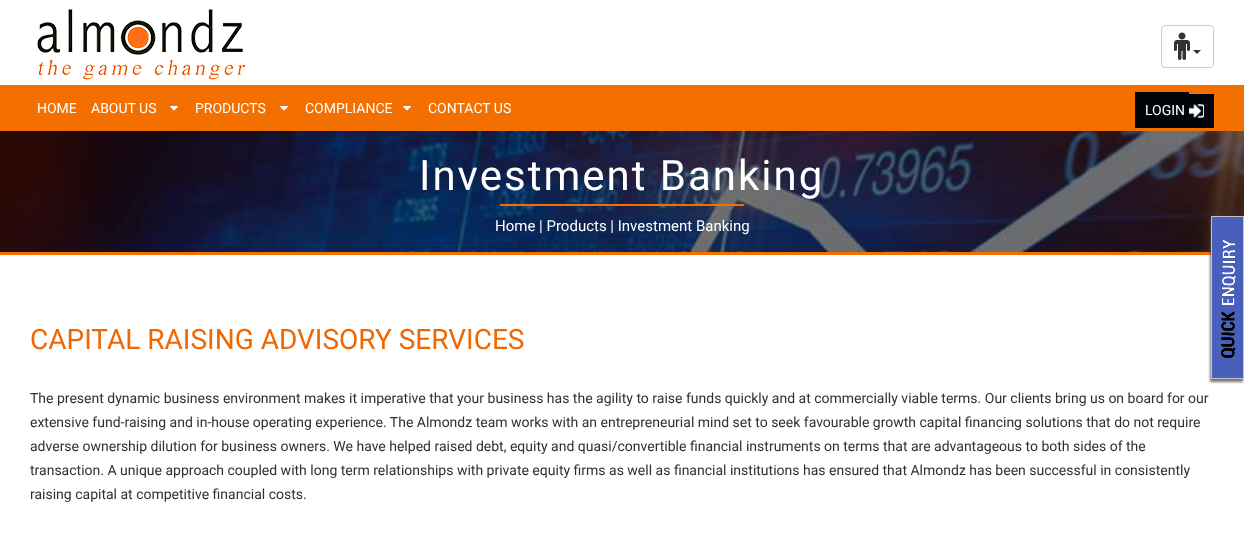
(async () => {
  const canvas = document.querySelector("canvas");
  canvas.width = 1244;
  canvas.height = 539;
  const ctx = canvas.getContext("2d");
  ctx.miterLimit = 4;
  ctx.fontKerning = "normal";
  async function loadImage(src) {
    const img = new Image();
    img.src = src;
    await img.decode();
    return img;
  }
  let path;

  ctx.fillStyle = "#ffffff";
  ctx.fillRect(0, 0, 1244, 539);
  ctx.drawImage(await loadImage("img/1.png"), 37, 9, 209, 71);
  ctx.beginPath();
  ctx.roundRect(1161.5, 25.5, 52, 42, 3.5);
  ctx.strokeStyle = "#cccccc";
  ctx.stroke();
  ctx.drawImage(await loadImage("img/2.png"), 1174, 32, 16, 28);
  ctx.fillStyle = "#333333";
  path = new Path2D("M1193 50H1201L1197 54Z");
  ctx.fill(path);
  ctx.fillStyle = "#f26f00";
  ctx.fillRect(0, 85, 1244, 46);
  ctx.drawImage(await loadImage("img/3.png"), 170, 106, 8, 5);
  ctx.drawImage(await loadImage("img/3.png"), 280, 106, 8, 5);
  ctx.drawImage(await loadImage("img/3.png"), 403, 106, 8, 5);
  ctx.fillStyle = "#01040a";
  ctx.fillRect(1135, 92, 54, 36);
  ctx.fillRect(1189, 94, 25, 34);
  ctx.drawImage(await loadImage("img/4.png"), 1189, 104, 15, 14);
  ctx.drawImage(await loadImage("img/5.png"), 0, 131, 1244, 121);
  ctx.fillStyle = "#f26f00";
  ctx.fillRect(0, 252, 1211, 3);
  ctx.drawImage(await loadImage("img/6.png"), 500, 204, 244, 2);
  ctx.drawImage(await loadImage("img/7.png"), 1208, 216, 36, 168);
  ctx.font = "14px Roboto";
  ctx.fillStyle = "#ffffff";
  for (const [text, x, y] of [
    ["HOME", 37, 113],
    ["ABOUT US", 91, 113],
    ["PRODUCTS", 195, 113],
    ["COMPLIANCE", 305, 113],
    ["CONTACT US", 428, 113],
    ["LOGIN", 1145, 115],
  ]) {
    ctx.fillText(text, x, y);
  }
  ctx.letterSpacing = "2px";
  ctx.font = "42px Roboto";
  ctx.fillText("Investment Banking", 419, 190);
  ctx.letterSpacing = "0px";
  ctx.font = "15px Roboto";
  ctx.fillText("Home | Products | Investment Banking", 495, 231);
  ctx.font = "28px Roboto";
  ctx.fillStyle = "#ef6701";
  ctx.fillText("CAPITAL RAISING ADVISORY SERVICES", 30, 349);
  ctx.font = "14px Roboto";
  ctx.fillStyle = "#303030";
  for (const [text, x, y] of [
    ["The present dynamic business environment makes it imperative that your business has the agility to raise funds quickly and at commercially viable terms. Our clients bring us on board for our", 30, 403],
    ["extensive fund-raising and in-house operating experience. The Almondz team works with an entrepreneurial mind set to seek favourable growth capital financing solutions that do not require", 30, 427],
    ["adverse ownership dilution for business owners. We have helped raised debt, equity and quasi/convertible financial instruments on terms that are advantageous to both sides of the", 30, 451],
    ["transaction. A unique approach coupled with long term relationships with private equity firms as well as financial institutions has ensured that Almondz has been successful in consistently", 30, 475],
    ["raising capital at competitive financial costs.", 30, 499],
  ]) {
    ctx.fillText(text, x, y);
  }
})();
